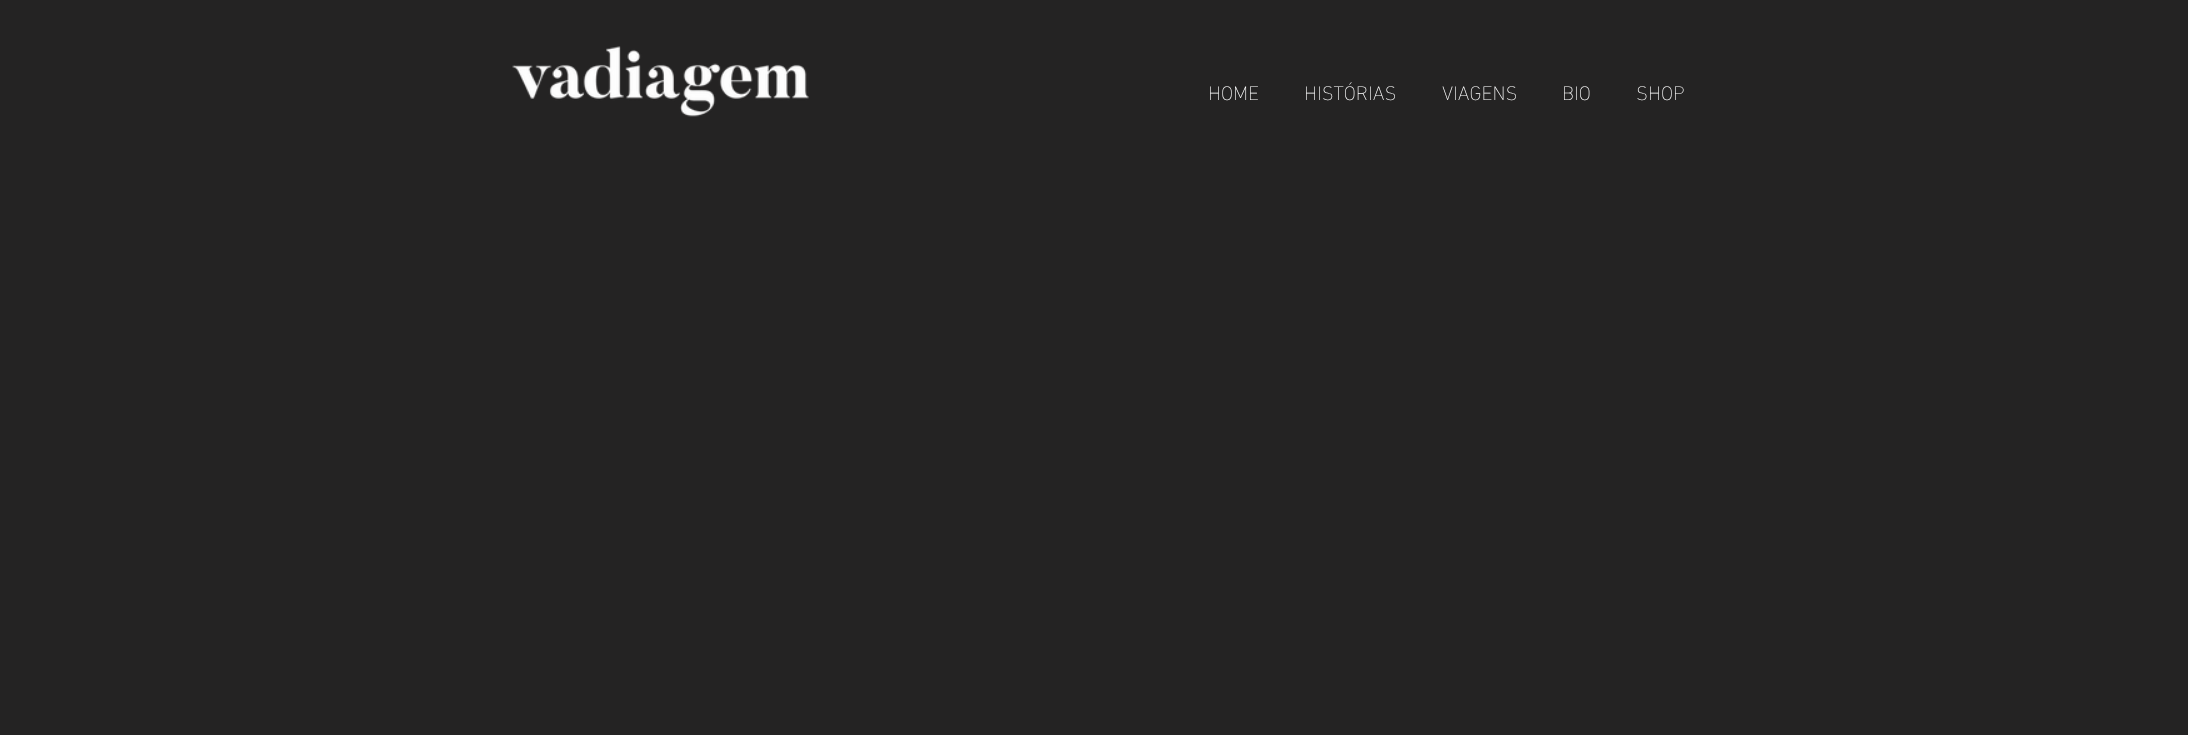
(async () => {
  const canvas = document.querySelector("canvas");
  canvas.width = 2188;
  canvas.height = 735;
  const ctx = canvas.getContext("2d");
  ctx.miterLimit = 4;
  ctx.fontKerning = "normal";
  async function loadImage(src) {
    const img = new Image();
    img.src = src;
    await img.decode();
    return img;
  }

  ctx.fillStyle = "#242323";
  ctx.fillRect(0, 0, 2188, 735);
  ctx.drawImage(await loadImage("img/1.png"), 512, 46, 297, 71);
  ctx.font = "200 20px 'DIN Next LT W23'";
  ctx.fillStyle = "#ffffff";
  for (const [text, x, y] of [
    ["HOME", 1208, 100],
    ["HISTÓRIAS", 1304, 100],
    ["VIAGENS", 1442, 100],
    ["BIO", 1562, 100],
    ["SHOP", 1636, 100],
  ]) {
    ctx.fillText(text, x, y);
  }
})();
